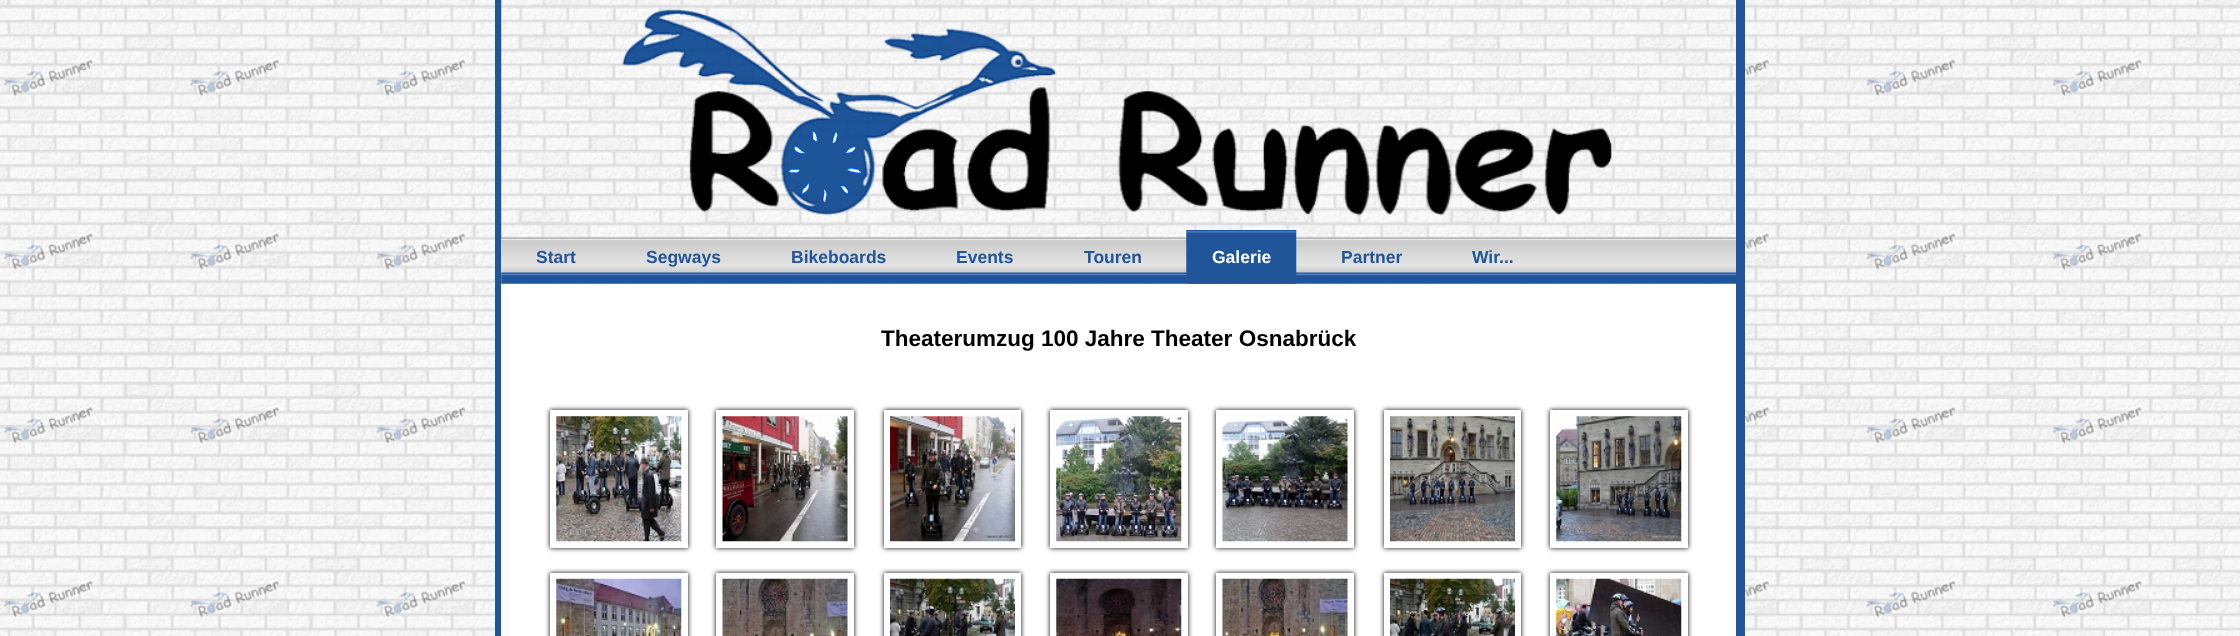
(async () => {
  const canvas = document.querySelector("canvas");
  canvas.width = 2240;
  canvas.height = 636;
  const ctx = canvas.getContext("2d");
  ctx.miterLimit = 4;
  ctx.fontKerning = "normal";
  async function loadImage(src) {
    const img = new Image();
    img.src = src;
    await img.decode();
    return img;
  }
  let path;

  ctx.fillStyle = "#ffffff";
  ctx.fillRect(0, 0, 2240, 636);
  ctx.drawImage(await loadImage("img/1.png"), 0, 0, 2240, 636);
  ctx.fillStyle = "#205599";
  ctx.fillRect(495, 0, 7, 636);
  ctx.drawImage(await loadImage("img/3.png"), 501, 0, 1235, 284);
  ctx.drawImage(await loadImage("img/4.png"), 622, 8, 990, 208);
  ctx.drawImage(await loadImage("img/2.png"), 788, 130, 74, 73);
  ctx.drawImage(await loadImage("img/5.png"), 501, 237, 1235, 47);
  ctx.drawImage(await loadImage("img/6.png"), 1186, 230, 111, 54);
  ctx.fillStyle = "#ffffff";
  ctx.fillRect(501, 284, 1235, 352);
  ctx.fillStyle = "#000000";
  ctx.filter = "blur(2.5px)";
  ctx.beginPath();
  ctx.rect(550, 410, 138, 138);
  ctx.fill();
  ctx.filter = "none";
  ctx.filter = "blur(2.5px)";
  ctx.beginPath();
  ctx.rect(716, 410, 138, 138);
  ctx.fill();
  ctx.filter = "none";
  ctx.filter = "blur(2.5px)";
  ctx.beginPath();
  ctx.rect(884, 410, 137, 138);
  ctx.fill();
  ctx.filter = "none";
  ctx.filter = "blur(2.5px)";
  ctx.beginPath();
  ctx.rect(1050, 410, 138, 138);
  ctx.fill();
  ctx.filter = "none";
  ctx.filter = "blur(2.5px)";
  ctx.beginPath();
  ctx.rect(1216, 410, 138, 138);
  ctx.fill();
  ctx.filter = "none";
  ctx.filter = "blur(2.5px)";
  ctx.beginPath();
  ctx.rect(1384, 410, 137, 138);
  ctx.fill();
  ctx.filter = "none";
  ctx.filter = "blur(2.5px)";
  ctx.beginPath();
  ctx.rect(1550, 410, 138, 138);
  ctx.fill();
  ctx.filter = "none";
  for (const [x, y, w, h, color] of [
    [550, 410, 138, 138, "#ffffff"],
    [716, 410, 138, 138, "#ffffff"],
    [884, 410, 137, 138, "#ffffff"],
    [1050, 410, 138, 138, "#ffffff"],
    [1216, 410, 138, 138, "#ffffff"],
    [1384, 410, 137, 138, "#ffffff"],
    [1550, 410, 138, 138, "#ffffff"],
  ]) {
    ctx.fillStyle = color;
    ctx.fillRect(x, y, w, h);
  }
  ctx.drawImage(await loadImage("img/7.png"), 556, 416, 126, 126);
  ctx.drawImage(await loadImage("img/8.png"), 722, 416, 126, 126);
  ctx.drawImage(await loadImage("img/9.png"), 890, 416, 125, 126);
  ctx.drawImage(await loadImage("img/10.png"), 1056, 416, 126, 126);
  ctx.drawImage(await loadImage("img/11.png"), 1222, 416, 126, 126);
  ctx.drawImage(await loadImage("img/12.png"), 1390, 416, 125, 126);
  ctx.drawImage(await loadImage("img/13.png"), 1556, 416, 126, 126);
  ctx.fillStyle = "#000000";
  ctx.filter = "blur(2.5px)";
  ctx.beginPath();
  ctx.rect(550, 573, 138, 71);
  ctx.fill();
  ctx.filter = "none";
  ctx.filter = "blur(2.5px)";
  ctx.beginPath();
  ctx.rect(716, 573, 138, 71);
  ctx.fill();
  ctx.filter = "none";
  ctx.save();
  path = new Path2D("M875 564H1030V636H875ZM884 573H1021V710H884Z");
  ctx.clip(path, "evenodd");
  ctx.filter = "blur(2.5px)";
  ctx.beginPath();
  ctx.rect(884, 573, 137, 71);
  ctx.fill();
  ctx.filter = "none";
  ctx.restore();
  ctx.filter = "blur(2.5px)";
  ctx.beginPath();
  ctx.rect(1050, 573, 138, 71);
  ctx.fill();
  ctx.filter = "none";
  ctx.filter = "blur(2.5px)";
  ctx.beginPath();
  ctx.rect(1216, 573, 138, 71);
  ctx.fill();
  ctx.filter = "none";
  ctx.save();
  path = new Path2D("M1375 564H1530V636H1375ZM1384 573H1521V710H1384Z");
  ctx.clip(path, "evenodd");
  ctx.filter = "blur(2.5px)";
  ctx.beginPath();
  ctx.rect(1384, 573, 137, 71);
  ctx.fill();
  ctx.filter = "none";
  ctx.restore();
  ctx.filter = "blur(2.5px)";
  ctx.beginPath();
  ctx.rect(1550, 573, 138, 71);
  ctx.fill();
  ctx.filter = "none";
  for (const [x, y, w, h, color] of [
    [550, 573, 138, 63, "#ffffff"],
    [716, 573, 138, 63, "#ffffff"],
    [1050, 573, 138, 63, "#ffffff"],
    [1216, 573, 138, 63, "#ffffff"],
    [1550, 573, 138, 63, "#ffffff"],
  ]) {
    ctx.fillStyle = color;
    ctx.fillRect(x, y, w, h);
  }
  ctx.drawImage(await loadImage("img/14.png"), 556, 578, 126, 58);
  ctx.drawImage(await loadImage("img/15.png"), 722, 578, 126, 58);
  ctx.drawImage(await loadImage("img/16.png"), 890, 578, 125, 58);
  ctx.drawImage(await loadImage("img/17.png"), 1056, 578, 126, 58);
  ctx.drawImage(await loadImage("img/18.png"), 1222, 578, 126, 58);
  ctx.drawImage(await loadImage("img/19.png"), 1390, 578, 125, 58);
  ctx.drawImage(await loadImage("img/20.png"), 1556, 578, 126, 58);
  ctx.fillStyle = "#205599";
  ctx.fillRect(1736, 0, 9, 636);
  ctx.font = "bold 17.5px Liberation Sans";
  for (const [text, x, y] of [
    ["Start", 536, 263],
    ["Segways", 646, 263],
    ["Bikeboards", 791, 263],
    ["Events", 956, 263],
    ["Touren", 1084, 263],
  ]) {
    ctx.fillText(text, x, y);
  }
  ctx.fillStyle = "#ffffff";
  ctx.fillText("Galerie", 1212, 263);
  ctx.fillStyle = "#205599";
  ctx.fillText("Partner", 1341, 263);
  ctx.fillText("Wir...", 1472, 263);
  ctx.font = "bold 22.5px Liberation Sans";
  ctx.fillStyle = "#000000";
  ctx.fillText("Theaterumzug 100 Jahre Theater Osnabrück", 881, 346);
})();
